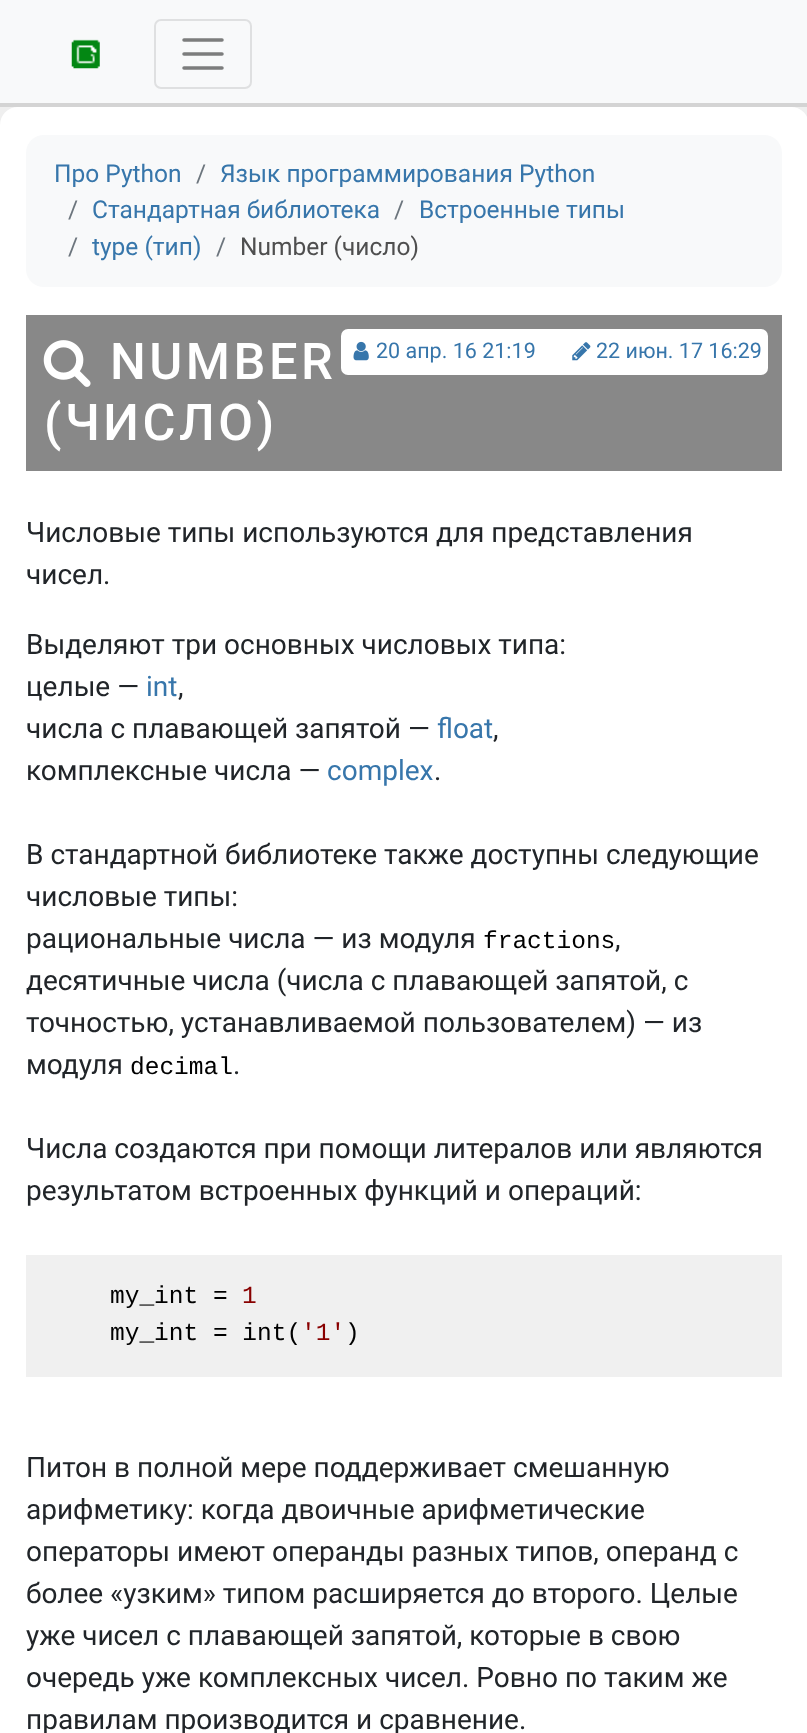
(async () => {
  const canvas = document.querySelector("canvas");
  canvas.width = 807;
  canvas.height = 1733;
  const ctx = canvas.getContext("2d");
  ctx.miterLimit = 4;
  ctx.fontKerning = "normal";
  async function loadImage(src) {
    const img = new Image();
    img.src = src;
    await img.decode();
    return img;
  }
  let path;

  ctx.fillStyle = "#efefef";
  ctx.fillRect(0, 0, 807, 1733);
  ctx.fillStyle = "#f8f9fa";
  ctx.fillRect(0, 0, 807, 103);
  ctx.fillStyle = "#d4d4d4";
  ctx.fillRect(0, 103, 807, 4);
  ctx.drawImage(await loadImage("img/1.png"), 71, 39, 29, 30);
  ctx.beginPath();
  ctx.roundRect(155, 20, 96, 68, 6);
  ctx.strokeStyle = "#dfe0e1";
  ctx.lineWidth = 2;
  ctx.stroke();
  path = new Path2D("M184 40H222M184 54H222M184 68H222");
  ctx.strokeStyle = "#7c7d7d";
  ctx.lineWidth = 3.5;
  ctx.lineCap = "round";
  ctx.stroke(path);
  ctx.fillStyle = "#ffffff";
  ctx.beginPath();
  ctx.roundRect(0, 107, 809, 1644, 18);
  ctx.fill();
  ctx.fillStyle = "#f8f9fa";
  ctx.beginPath();
  ctx.roundRect(26, 135, 756, 152, 18);
  ctx.fill();
  ctx.fillStyle = "#888888";
  ctx.fillRect(26, 315, 756, 156);
  ctx.drawImage(await loadImage("img/2.png"), 43, 340, 48, 47);
  ctx.fillStyle = "#ffffff";
  ctx.beginPath();
  ctx.roundRect(341, 329, 427, 46, 7);
  ctx.fill();
  ctx.drawImage(await loadImage("img/3.png"), 353, 341, 16, 20);
  ctx.drawImage(await loadImage("img/4.png"), 572, 342, 19, 19);
  ctx.fillStyle = "#f0f0f0";
  ctx.fillRect(26, 1255, 756, 122);
  ctx.font = "24.5px Roboto";
  ctx.fillStyle = "#3776ab";
  ctx.fillText("Про Python", 54, 182);
  ctx.fillStyle = "#6c757d";
  ctx.fillText("/", 196, 182);
  ctx.fillStyle = "#3776ab";
  ctx.fillText("Язык программирования Python", 220, 182);
  ctx.fillStyle = "#6c757d";
  ctx.fillText("/", 68, 218);
  ctx.fillStyle = "#3776ab";
  ctx.fillText("Стандартная библиотека", 92, 218);
  ctx.fillStyle = "#6c757d";
  ctx.fillText("/", 394, 218);
  ctx.fillStyle = "#3776ab";
  ctx.fillText("Встроенные типы", 419, 218);
  ctx.fillStyle = "#6c757d";
  ctx.fillText("/", 68, 255);
  ctx.fillStyle = "#3776ab";
  ctx.fillText("type (тип)", 92, 255);
  ctx.fillStyle = "#6c757d";
  ctx.fillText("/", 216, 255);
  ctx.fillStyle = "#4f4f4f";
  ctx.fillText("Number (число)", 240, 255);
  ctx.letterSpacing = "3.5px";
  ctx.font = "500 50.5px Roboto";
  ctx.fillStyle = "#ffffff";
  ctx.fillText("NUMBER", 110, 379);
  ctx.fillText("(ЧИСЛО)", 44, 440);
  ctx.letterSpacing = "0px";
  ctx.font = "21.5px Roboto";
  ctx.fillStyle = "#3776ab";
  ctx.fillText("20 апр. 16 21:19", 376, 358);
  ctx.fillText("22 июн. 17 16:29", 596, 358);
  ctx.font = "28px Roboto";
  ctx.fillStyle = "#212529";
  for (const [text, x, y] of [
    ["Числовые типы используются для представления", 26, 542],
    ["чисел.", 26, 584],
    ["Выделяют три основных числовых типа:", 26, 654],
    ["целые —", 26, 696],
  ]) {
    ctx.fillText(text, x, y);
  }
  ctx.fillStyle = "#3776ab";
  ctx.fillText("int", 146, 696);
  ctx.fillStyle = "#212529";
  ctx.fillText(",", 178, 696);
  ctx.fillText("числа с плавающей запятой —", 26, 738);
  ctx.fillStyle = "#3776ab";
  ctx.fillText("float", 437, 738);
  ctx.fillStyle = "#212529";
  ctx.fillText(",", 493, 738);
  ctx.fillText("комплексные числа —", 26, 780);
  ctx.fillStyle = "#3776ab";
  ctx.fillText("complex", 327, 780);
  ctx.fillStyle = "#212529";
  for (const [text, x, y] of [
    [".", 434, 780],
    ["В стандартной библиотеке также доступны следующие", 26, 864],
    ["числовые типы:", 26, 906],
    ["рациональные числа — из модуля", 26, 948],
  ]) {
    ctx.fillText(text, x, y);
  }
  ctx.font = "24.5px Liberation Mono";
  ctx.fillStyle = "#000000";
  ctx.fillText("fractions", 483, 948);
  ctx.font = "28px Roboto";
  ctx.fillStyle = "#212529";
  for (const [text, x, y] of [
    [",", 615, 948],
    ["десятичные числа (числа с плавающей запятой, с", 26, 990],
    ["точностью, устанавливаемой пользователем) — из", 26, 1032],
    ["модуля", 26, 1074],
  ]) {
    ctx.fillText(text, x, y);
  }
  ctx.font = "24.5px Liberation Mono";
  ctx.fillStyle = "#000000";
  ctx.fillText("decimal", 130, 1074);
  ctx.font = "28px Roboto";
  ctx.fillStyle = "#212529";
  for (const [text, x, y] of [
    [".", 233, 1074],
    ["Числа создаются при помощи литералов или являются", 26, 1158],
    ["результатом встроенных функций и операций:", 26, 1200],
  ]) {
    ctx.fillText(text, x, y);
  }
  ctx.font = "24.5px Liberation Mono";
  ctx.fillStyle = "#000000";
  ctx.fillText("my_int =", 110, 1303);
  ctx.fillStyle = "#880000";
  ctx.fillText("1", 242, 1303);
  ctx.fillStyle = "#000000";
  ctx.fillText("my_int = int(", 110, 1340);
  ctx.fillStyle = "#880000";
  ctx.fillText("'1'", 301, 1340);
  ctx.fillStyle = "#000000";
  ctx.fillText(")", 345, 1340);
  ctx.font = "28px Roboto";
  ctx.fillStyle = "#212529";
  for (const [text, x, y] of [
    ["Питон в полной мере поддерживает смешанную", 26, 1477],
    ["арифметику: когда двоичные арифметические", 26, 1519],
    ["операторы имеют операнды разных типов, операнд с", 26, 1561],
    ["более «узким» типом расширяется до второго. Целые", 26, 1603],
    ["уже чисел с плавающей запятой, которые в свою", 26, 1645],
    ["очередь уже комплексных чисел. Ровно по таким же", 26, 1687],
    ["правилам производится и сравнение.", 26, 1729],
  ]) {
    ctx.fillText(text, x, y);
  }
})();
